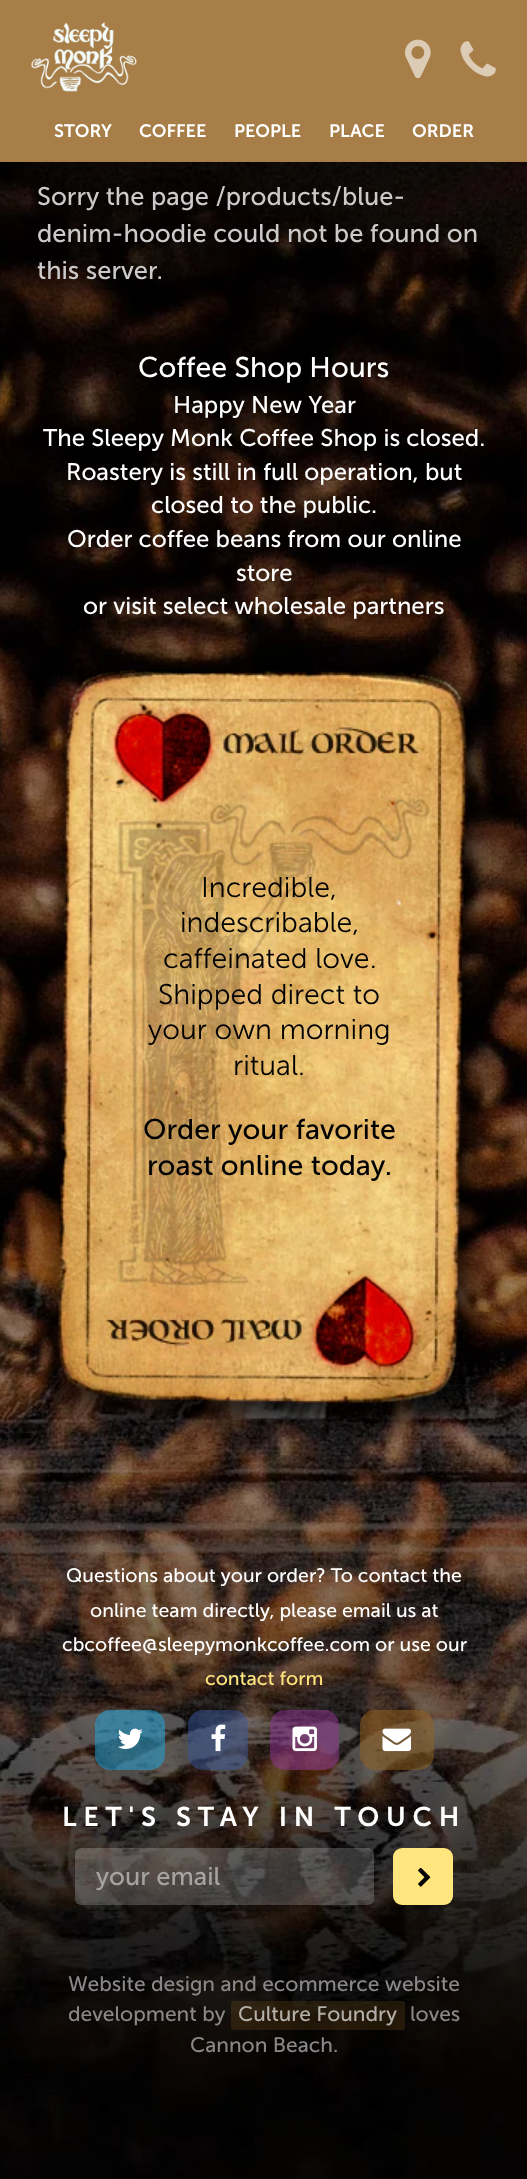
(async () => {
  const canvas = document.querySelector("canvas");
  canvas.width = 527;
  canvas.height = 2179;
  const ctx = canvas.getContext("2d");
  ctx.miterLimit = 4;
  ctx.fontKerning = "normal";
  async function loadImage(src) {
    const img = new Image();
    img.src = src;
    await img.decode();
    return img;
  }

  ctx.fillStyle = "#ffffff";
  ctx.fillRect(0, 0, 527, 2179);
  ctx.drawImage(await loadImage("img/1.png"), 0, 162, 527, 2017);
  ctx.fillStyle = "#a87e48";
  ctx.fillRect(0, 0, 527, 162);
  ctx.drawImage(await loadImage("img/2.png"), 31, 22, 106, 70);
  ctx.drawImage(await loadImage("img/3.png"), 405, 39, 26, 40);
  ctx.drawImage(await loadImage("img/4.png"), 460, 41, 36, 36);
  ctx.drawImage(await loadImage("img/5.png"), 44, 669, 450, 769);
  ctx.fillStyle = "rgba(30, 169, 227, 0.5)";
  ctx.beginPath();
  ctx.roundRect(95, 1710, 70, 60, 15);
  ctx.fill();
  ctx.drawImage(await loadImage("img/6.png"), 118, 1728, 25, 21);
  ctx.fillStyle = "rgba(58, 88, 153, 0.5)";
  ctx.beginPath();
  ctx.roundRect(188, 1710, 60, 60, 15);
  ctx.fill();
  ctx.drawImage(await loadImage("img/7.png"), 211, 1724, 15, 28);
  ctx.fillStyle = "rgba(150, 53, 150, 0.5)";
  ctx.beginPath();
  ctx.roundRect(270, 1710, 69, 60, 15);
  ctx.fill();
  ctx.drawImage(await loadImage("img/8.png"), 292, 1726, 25, 26);
  ctx.fillStyle = "rgba(148, 97, 31, 0.5)";
  ctx.beginPath();
  ctx.roundRect(360, 1710, 74, 60, 15);
  ctx.fill();
  ctx.drawImage(await loadImage("img/9.png"), 382, 1728, 29, 24);
  ctx.fillStyle = "rgba(255, 255, 255, 0.2)";
  ctx.beginPath();
  ctx.roundRect(75, 1848, 299, 57, 6);
  ctx.fill();
  ctx.fillStyle = "#fee57e";
  ctx.beginPath();
  ctx.roundRect(393, 1848, 60, 57, 9);
  ctx.fill();
  ctx.drawImage(await loadImage("img/10.png"), 418, 1867, 13, 20);
  ctx.fillStyle = "rgba(148, 97, 31, 0.21)";
  ctx.beginPath();
  ctx.roundRect(231, 2001, 174, 29, 3);
  ctx.fill();
  ctx.font = "600 18px 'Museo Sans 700'";
  ctx.fillStyle = "#ffffff";
  for (const [text, x, y] of [
    ["STORY", 54, 137],
    ["COFFEE", 139, 137],
    ["PEOPLE", 234, 137],
    ["PLACE", 329, 137],
    ["ORDER", 412, 137],
  ]) {
    ctx.fillText(text, x, y);
  }
  ctx.font = "25.5px 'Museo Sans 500'";
  ctx.fillStyle = "#cbc9c9";
  for (const [text, x, y] of [
    ["Sorry the page /products/blue-", 37, 205],
    ["denim-hoodie could not be found on", 37, 242],
    ["this server.", 37, 279],
  ]) {
    ctx.fillText(text, x, y);
  }
  ctx.font = "28.5px 'Museo Sans 500'";
  ctx.fillStyle = "#ffffff";
  ctx.fillText("Coffee Shop Hours", 138, 377);
  ctx.font = "24px 'Museo Sans 500'";
  for (const [text, x, y] of [
    ["Happy New Year", 173, 413],
    ["The Sleepy Monk Coffee Shop is closed.", 43, 446],
    ["Roastery is still in full operation, but", 66, 480],
    ["closed to the public.", 151, 513],
    ["Order coffee beans from our online", 67, 547],
    ["store", 236, 581],
    ["or visit select wholesale partners", 83, 614],
  ]) {
    ctx.fillText(text, x, y);
  }
  ctx.font = "300 28.5px 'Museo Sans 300'";
  ctx.fillStyle = "#000000";
  for (const [text, x, y] of [
    ["Incredible,", 201, 897],
    ["indescribable,", 180, 932],
    ["caffeinated love.", 163, 968],
    ["Shipped direct to", 158, 1004],
    ["your own morning", 148, 1039],
    ["ritual.", 233, 1075],
  ]) {
    ctx.fillText(text, x, y);
  }
  ctx.font = "28.5px 'Museo Sans 500'";
  ctx.fillText("Order your favorite", 143, 1139);
  ctx.fillText("roast online today.", 147, 1175);
  ctx.font = "19.5px 'Museo Sans 500'";
  ctx.fillStyle = "#ffffff";
  for (const [text, x, y] of [
    ["Questions about your order? To contact the", 66, 1582],
    ["online team directly, please email us at", 90, 1617],
    ["cbcoffee@sleepymonkcoffee.com or use our", 62, 1651],
  ]) {
    ctx.fillText(text, x, y);
  }
  ctx.fillStyle = "#fee57e";
  ctx.fillText("contact form", 205, 1685);
  ctx.letterSpacing = "6.75px";
  ctx.font = "600 27px 'Museo Sans 700'";
  ctx.fillStyle = "#ffffff";
  ctx.fillText("LET'S STAY IN TOUCH", 62, 1826);
  ctx.letterSpacing = "0px";
  ctx.font = "25.5px 'Museo Sans 500'";
  ctx.fillStyle = "#a7a3a2";
  ctx.fillText("your email", 96, 1885);
  ctx.font = "21px 'Museo Sans 500'";
  ctx.fillStyle = "#898787";
  ctx.fillText("Website design and ecommerce website", 68, 1991);
  ctx.fillText("development by", 68, 2021);
  ctx.fillStyle = "#b3afa9";
  ctx.fillText("Culture Foundry", 238, 2021);
  ctx.fillStyle = "#898787";
  ctx.fillText("loves", 410, 2021);
  ctx.fillText("Cannon Beach.", 190, 2052);
})();
